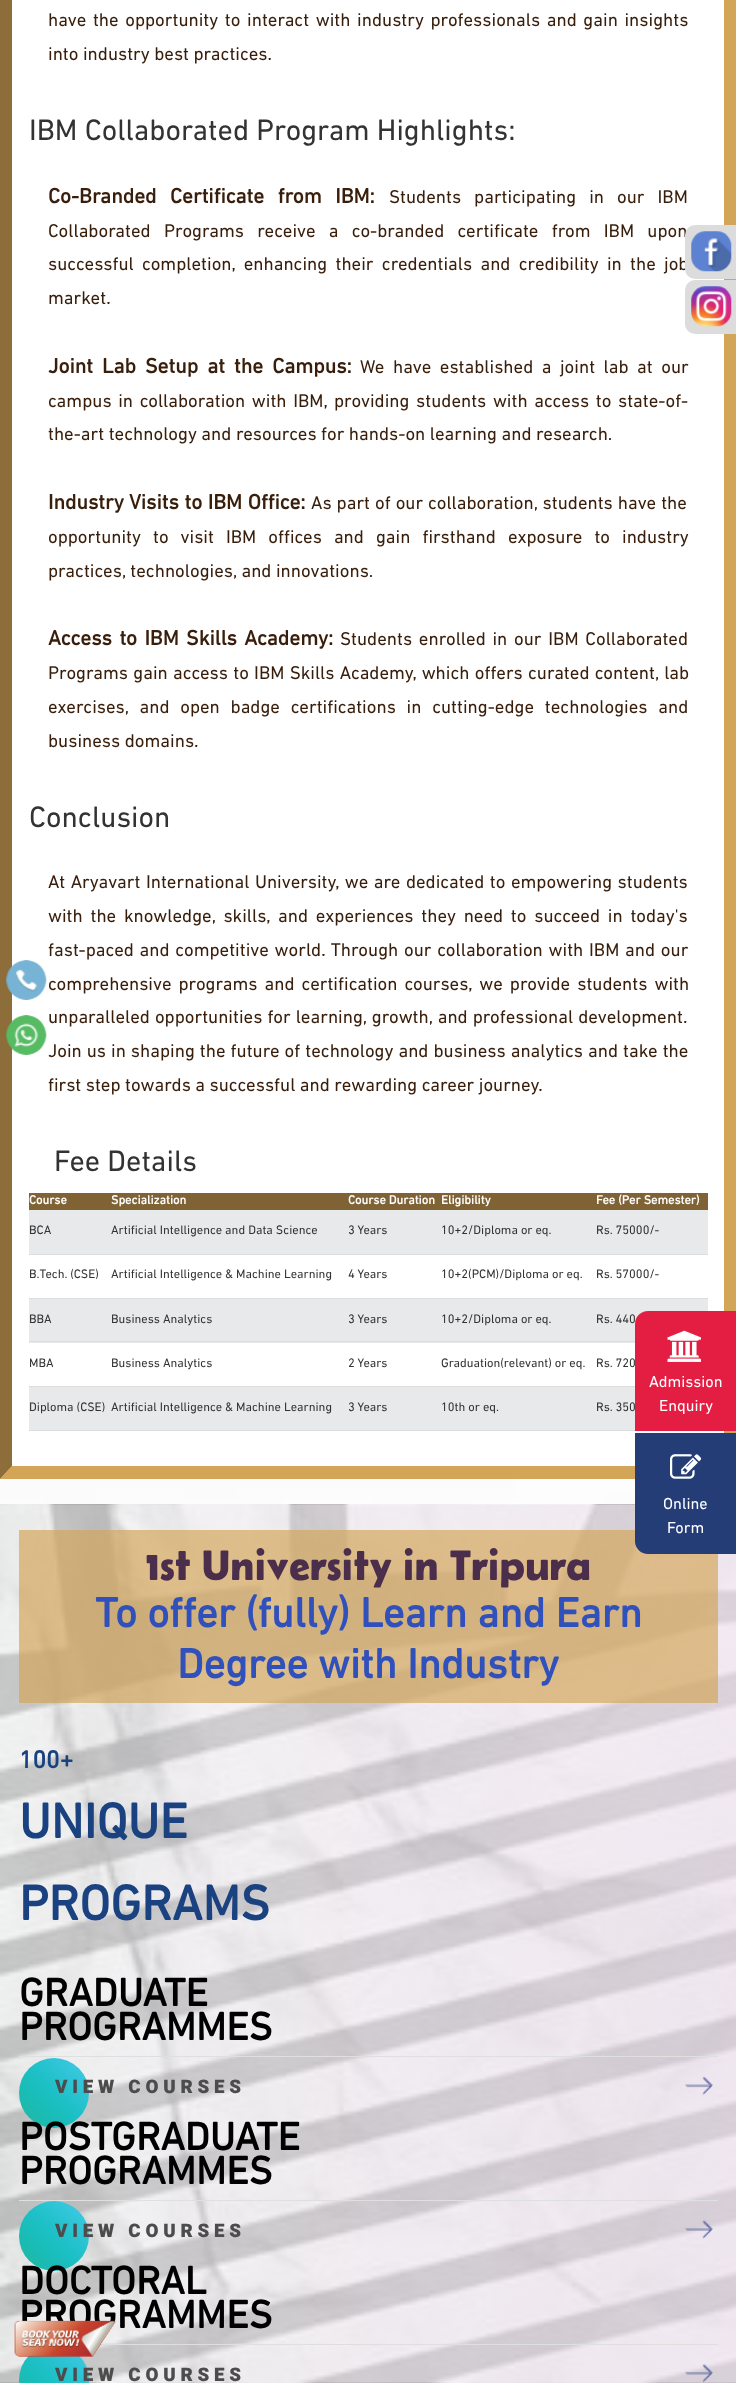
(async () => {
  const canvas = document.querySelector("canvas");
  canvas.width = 736;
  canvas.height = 2383;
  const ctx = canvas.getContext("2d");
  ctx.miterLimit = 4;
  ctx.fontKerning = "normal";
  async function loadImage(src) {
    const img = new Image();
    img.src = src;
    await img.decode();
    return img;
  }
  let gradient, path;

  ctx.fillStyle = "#ffffff";
  ctx.fillRect(0, 0, 736, 2383);
  ctx.drawImage(await loadImage("img/1.png"), 0, 1479, 635, 26);
  ctx.fillStyle = "#d3a558";
  path = new Path2D("M736-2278V1479L724 1466V-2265Z");
  ctx.fill(path);
  path = new Path2D("M736 1479H0L12 1466H724Z");
  ctx.fill(path);
  ctx.fillStyle = "#8d6e3b";
  path = new Path2D("M0 1479V-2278L12-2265V1466Z");
  ctx.fill(path);
  for (const [x, y, w, h, color] of [
    [29, 1193, 679, 17, "#7f6335"],
    [29, 1210, 679, 44, "#e7e9eb"],
    [29, 1254, 679, 1, "#dddddd"],
    [29, 1298, 679, 1, "#dddddd"],
    [29, 1299, 679, 44, "#e7e9eb"],
    [29, 1341, 606, 1, "#dddddd"],
    [29, 1386, 606, 1, "#dddddd"],
    [29, 1387, 606, 43, "#e7e9eb"],
    [29, 1430, 606, 1, "#dddddd"],
  ]) {
    ctx.fillStyle = color;
    ctx.fillRect(x, y, w, h);
  }
  ctx.fillStyle = "#dcdcdc";
  ctx.beginPath();
  ctx.roundRect(685, 280, 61, 54, 10);
  ctx.fill();
  ctx.drawImage(await loadImage("img/3.png"), 691, 286, 41, 41);
  ctx.drawImage(await loadImage("img/4.png"), 6, 960, 41, 40);
  ctx.drawImage(await loadImage("img/5.png"), 6, 1015, 41, 40);
  ctx.fillStyle = "#e41d43";
  ctx.beginPath();
  ctx.roundRect(635, 1311, 101, 120, [13, 0, 0, 0]);
  ctx.fill();
  ctx.drawImage(await loadImage("img/6.png"), 667, 1330, 34, 32);
  ctx.drawImage(await loadImage("img/8.png"), 0, 1504, 736, 879);
  ctx.fillStyle = "rgba(211, 165, 88, 0.68)";
  ctx.fillRect(19, 1530, 699, 173);
  ctx.fillStyle = "#243d77";
  ctx.beginPath();
  ctx.roundRect(635, 1433, 101, 121, [0, 0, 0, 13]);
  ctx.fill();
  ctx.drawImage(await loadImage("img/7.png"), 670, 1454, 32, 25);
  ctx.fillStyle = "#dfdfdf";
  ctx.fillRect(19, 2056, 699, 1);
  gradient = ctx.createLinearGradient(19, 2128, 89, 2058);
  gradient.addColorStop(0, "#2ab59d");
  gradient.addColorStop(0.25, "#1abbb2");
  gradient.addColorStop(0.5, "#1cc0c6");
  gradient.addColorStop(0.75, "#30c5d8");
  gradient.addColorStop(1, "#4ac9e8");
  ctx.fillStyle = gradient;
  ctx.beginPath();
  ctx.arc(54, 2093, 35, 0, Math.PI * 2);
  ctx.fill();
  ctx.drawImage(await loadImage("img/9.png"), 685, 2076, 28, 19);
  ctx.fillStyle = "#dfdfdf";
  ctx.fillRect(19, 2200, 699, 1);
  gradient = ctx.createLinearGradient(19, 2271, 89, 2201);
  gradient.addColorStop(0, "#2ab59d");
  gradient.addColorStop(0.25, "#1abbb2");
  gradient.addColorStop(0.5, "#1cc0c6");
  gradient.addColorStop(0.75, "#30c5d8");
  gradient.addColorStop(1, "#4ac9e8");
  ctx.fillStyle = gradient;
  ctx.beginPath();
  ctx.arc(54, 2236, 35, 0, Math.PI * 2);
  ctx.fill();
  ctx.drawImage(await loadImage("img/10.png"), 685, 2220, 28, 19);
  ctx.fillStyle = "#dfdfdf";
  ctx.fillRect(100, 2344, 618, 1);
  gradient = ctx.createLinearGradient(19, 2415, 89, 2345);
  gradient.addColorStop(0, "#2ab59d");
  gradient.addColorStop(0.25, "#1abbb2");
  gradient.addColorStop(0.5, "#1cc0c6");
  gradient.addColorStop(0.75, "#30c5d8");
  gradient.addColorStop(1, "#4ac9e8");
  ctx.fillStyle = gradient;
  ctx.beginPath();
  ctx.arc(54, 2380, 35, 0, Math.PI * 2);
  ctx.fill();
  ctx.drawImage(await loadImage("img/11.png"), 685, 2364, 28, 18);
  ctx.wordSpacing = "2.1px";
  ctx.font = "18.75px DIN Next";
  ctx.fillStyle = "#381e0b";
  ctx.fillText("have the opportunity to interact with industry professionals and gain insights", 48, 26);
  ctx.wordSpacing = "0px";
  ctx.fillText("into industry best practices.", 48, 60);
  ctx.font = "30px DIN Next";
  ctx.fillStyle = "#333333";
  ctx.fillText("IBM Collaborated Program Highlights:", 29, 140);
  ctx.wordSpacing = "8.5px";
  ctx.font = "bold 21.25px DIN Next";
  ctx.fillStyle = "#381e0b";
  ctx.fillText("Co-Branded Certificate from IBM:", 48, 203);
  ctx.font = "18.75px DIN Next";
  ctx.fillText("Students participating in our IBM", 389, 203);
  ctx.wordSpacing = "8.75px";
  ctx.fillText("Collaborated Programs receive a co-branded certificate from IBM upon", 48, 237);
  ctx.wordSpacing = "3.75px";
  ctx.fillText("successful completion, enhancing their credentials and credibility in the job", 48, 270);
  ctx.wordSpacing = "0px";
  ctx.fillText("market.", 48, 304);
  ctx.wordSpacing = "4px";
  ctx.font = "bold 21.25px DIN Next";
  ctx.fillText("Joint Lab Setup at the Campus:", 48, 373);
  ctx.font = "18.75px DIN Next";
  ctx.fillText("We have established a joint lab at our", 360, 373);
  ctx.wordSpacing = "2.1px";
  ctx.fillText("campus in collaboration with IBM, providing students with access to state-of-", 48, 407);
  ctx.wordSpacing = "0px";
  ctx.fillText("the-art technology and resources for hands-on learning and research.", 48, 440);
  ctx.wordSpacing = "0.5px";
  ctx.font = "bold 21.25px DIN Next";
  ctx.fillText("Industry Visits to IBM Office:", 48, 509);
  ctx.font = "18.75px DIN Next";
  ctx.fillText("As part of our collaboration, students have the", 311, 509);
  ctx.wordSpacing = "7.5px";
  ctx.fillText("opportunity to visit IBM offices and gain firsthand exposure to industry", 48, 543);
  ctx.wordSpacing = "0px";
  ctx.fillText("practices, technologies, and innovations.", 48, 577);
  ctx.wordSpacing = "2.25px";
  ctx.font = "bold 21.25px DIN Next";
  ctx.fillText("Access to IBM Skills Academy:", 48, 645);
  ctx.font = "18.75px DIN Next";
  ctx.fillText("Students enrolled in our IBM Collaborated", 340, 645);
  ctx.wordSpacing = "0.75px";
  ctx.fillText("Programs gain access to IBM Skills Academy, which offers curated content, lab", 48, 679);
  ctx.wordSpacing = "6.25px";
  ctx.fillText("exercises, and open badge certifications in cutting-edge technologies and", 48, 713);
  ctx.wordSpacing = "0px";
  ctx.fillText("business domains.", 48, 747);
  ctx.font = "30px DIN Next";
  ctx.fillStyle = "#333333";
  ctx.fillText("Conclusion", 29, 827);
  ctx.wordSpacing = "1px";
  ctx.font = "18.75px DIN Next";
  ctx.fillStyle = "#381e0b";
  ctx.fillText("At Aryavart International University, we are dedicated to empowering students", 48, 888);
  ctx.wordSpacing = "3.25px";
  ctx.fillText("with the knowledge, skills, and experiences they need to succeed in today's", 48, 922);
  ctx.wordSpacing = "1.25px";
  ctx.fillText("fast-paced and competitive world. Through our collaboration with IBM and our", 48, 956);
  ctx.wordSpacing = "2.5px";
  ctx.fillText("comprehensive programs and certification courses, we provide students with", 48, 990);
  ctx.wordSpacing = "0.5px";
  ctx.fillText("unparalleled opportunities for learning, growth, and professional development.", 48, 1023);
  ctx.fillText("Join us in shaping the future of technology and business analytics and take the", 48, 1057);
  ctx.wordSpacing = "0px";
  ctx.fillText("first step towards a successful and rewarding career journey.", 48, 1091);
  ctx.font = "30px DIN Next";
  ctx.fillStyle = "#333333";
  ctx.fillText("Fee Details", 54, 1171);
  ctx.font = "bold 12.5px DIN Next";
  ctx.fillStyle = "#ffffff";
  for (const [text, x, y] of [
    ["Course", 29, 1204],
    ["Specialization", 111, 1204],
    ["Course Duration", 348, 1204],
    ["Eligibility", 441, 1204],
    ["Fee (Per Semester)", 596, 1204],
  ]) {
    ctx.fillText(text, x, y);
  }
  ctx.font = "12.5px DIN Next";
  ctx.fillStyle = "#333333";
  for (const [text, x, y] of [
    ["BCA", 29, 1234],
    ["Artificial Intelligence and Data Science", 111, 1234],
    ["3 Years", 348, 1234],
    ["10+2/Diploma or eq.", 441, 1234],
    ["Rs. 75000/-", 596, 1234],
    ["B.Tech. (CSE)", 29, 1278],
    ["Artificial Intelligence & Machine Learning", 111, 1278],
    ["4 Years", 348, 1278],
    ["10+2(PCM)/Diploma or eq.", 441, 1278],
    ["Rs. 57000/-", 596, 1278],
    ["BBA", 29, 1323],
    ["Business Analytics", 111, 1323],
    ["3 Years", 348, 1323],
    ["10+2/Diploma or eq.", 441, 1323],
    ["Rs. 440", 596, 1323],
    ["MBA", 29, 1367],
    ["Business Analytics", 111, 1367],
    ["2 Years", 348, 1367],
    ["Graduation(relevant) or eq.", 441, 1367],
    ["Rs. 720", 596, 1367],
    ["Diploma (CSE)", 29, 1411],
    ["Artificial Intelligence & Machine Learning", 111, 1411],
    ["3 Years", 348, 1411],
    ["10th or eq.", 441, 1411],
    ["Rs. 350", 596, 1411],
  ]) {
    ctx.fillText(text, x, y);
  }
  ctx.fillStyle = "#dcdcdc";
  ctx.beginPath();
  ctx.roundRect(685, 225, 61, 54, 10);
  ctx.fill();
  ctx.drawImage(await loadImage("img/2.png"), 691, 231, 41, 41);
  ctx.font = "16.25px DIN Next";
  ctx.fillStyle = "#ffffff";
  for (const [text, x, y] of [
    ["Admission", 649, 1387],
    ["Enquiry", 659, 1411],
    ["Online", 663, 1509],
    ["Form", 667, 1533],
  ]) {
    ctx.fillText(text, x, y);
  }
  ctx.font = "600 42.5px Belanosima";
  ctx.fillStyle = "#4a2e4b";
  ctx.fillText("1st University in Tripura", 146, 1580);
  ctx.font = "bold 42.5px DIN Next";
  ctx.fillStyle = "#3050bb";
  ctx.fillText("To offer (fully) Learn and Earn", 95, 1627);
  ctx.fillText("Degree with Industry", 177, 1678);
  ctx.font = "bold 25px DIN Next";
  ctx.fillStyle = "#1a4280";
  ctx.fillText("100+", 19, 1768);
  ctx.font = "bold 50px DIN Next";
  ctx.fillText("UNIQUE", 19, 1838);
  ctx.fillText("PROGRAMS", 19, 1920);
  ctx.font = "bold 40px DIN Next";
  ctx.fillStyle = "#000000";
  ctx.fillText("GRADUATE", 19, 2006);
  ctx.fillText("PROGRAMMES", 19, 2040);
  ctx.letterSpacing = "4.75px";
  ctx.font = "900 18.75px Heebo";
  ctx.fillStyle = "#4c4c4c";
  ctx.fillText("VIEW COURSES", 55, 2093);
  ctx.letterSpacing = "0px";
  ctx.font = "bold 40px DIN Next";
  ctx.fillStyle = "#000000";
  ctx.fillText("POSTGRADUATE", 19, 2150);
  ctx.fillText("PROGRAMMES", 19, 2184);
  ctx.letterSpacing = "4.75px";
  ctx.font = "900 18.75px Heebo";
  ctx.fillStyle = "#4c4c4c";
  ctx.fillText("VIEW COURSES", 55, 2237);
  ctx.letterSpacing = "0px";
  ctx.font = "bold 40px DIN Next";
  ctx.fillStyle = "#000000";
  ctx.fillText("DOCTORAL", 19, 2294);
  ctx.fillText("PROGRAMMES", 19, 2328);
  ctx.letterSpacing = "4.75px";
  ctx.font = "900 18.75px Heebo";
  ctx.fillStyle = "#4c4c4c";
  ctx.fillText("VIEW COURSES", 55, 2381);
  ctx.drawImage(await loadImage("img/12.png"), 14, 2320, 102, 37);
})();
